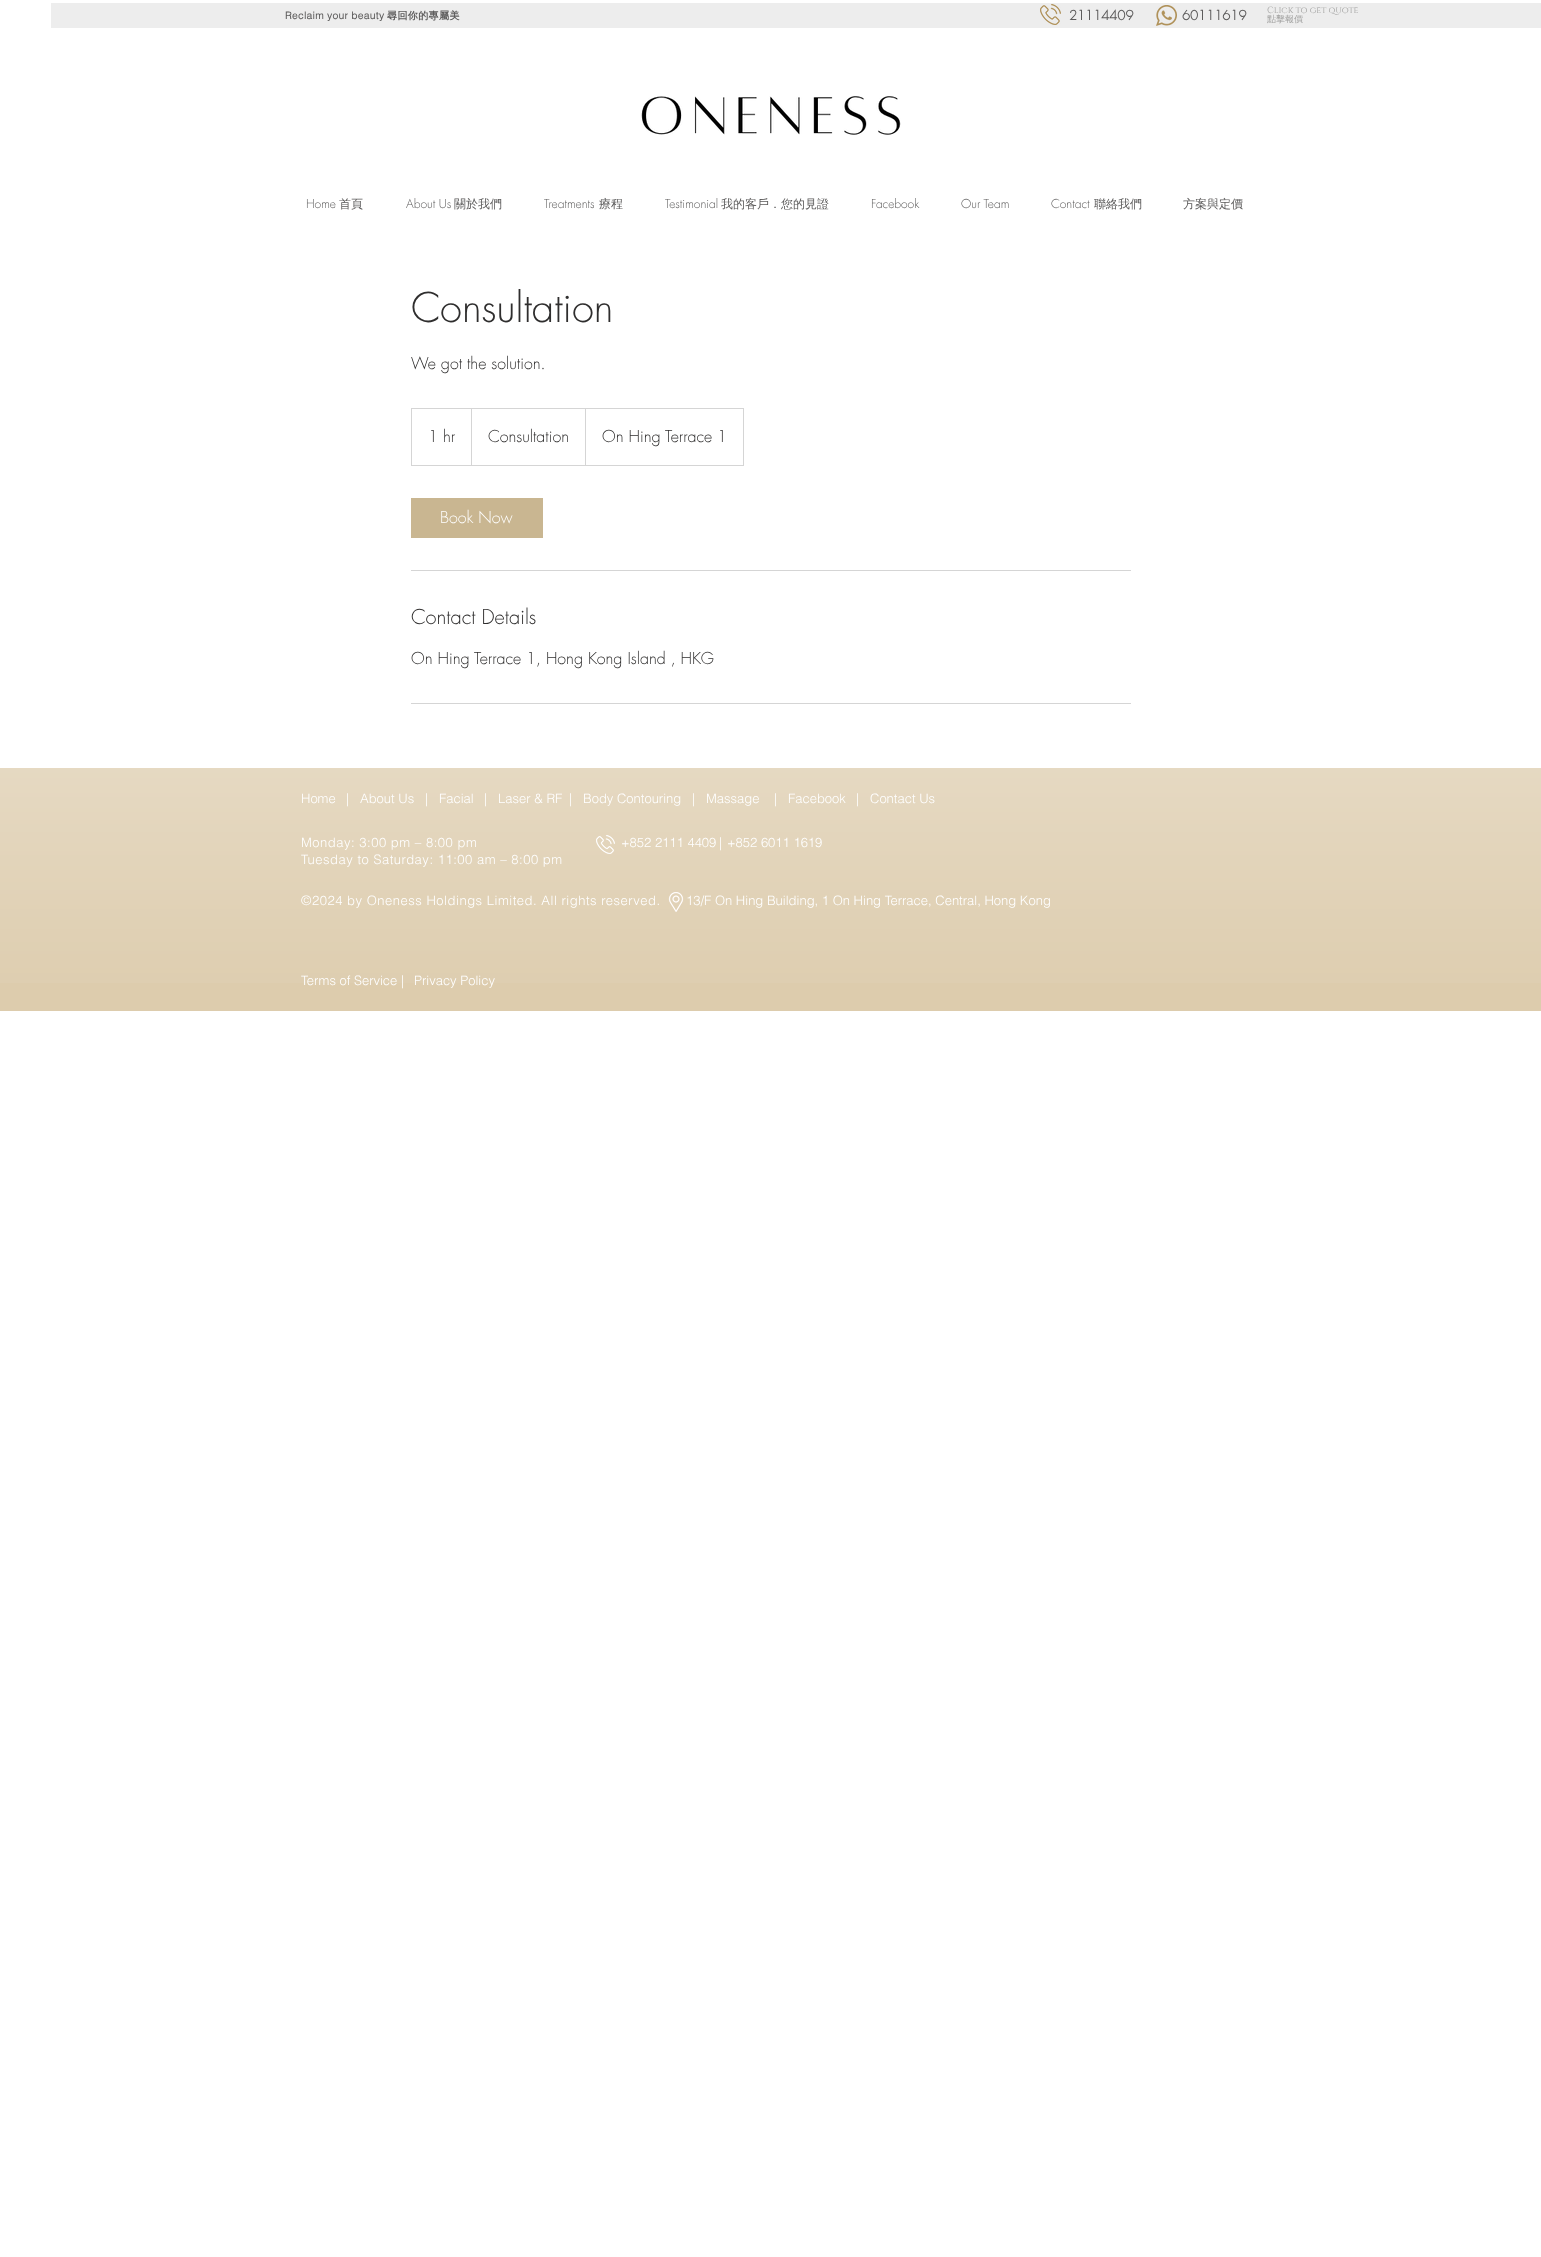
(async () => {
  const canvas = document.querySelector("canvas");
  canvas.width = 1541;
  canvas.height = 2257;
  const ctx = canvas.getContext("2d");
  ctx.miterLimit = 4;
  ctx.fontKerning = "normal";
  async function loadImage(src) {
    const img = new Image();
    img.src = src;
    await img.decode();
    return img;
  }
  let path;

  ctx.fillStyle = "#ffffff";
  ctx.fillRect(0, 0, 1541, 2257);
  ctx.fillStyle = "#ededed";
  ctx.fillRect(51, 3, 1490, 25);
  ctx.drawImage(await loadImage("img/1.png"), 1040, 4, 21, 21);
  ctx.drawImage(await loadImage("img/2.png"), 1156, 5, 21, 21);
  ctx.drawImage(await loadImage("img/3.png"), 641, 96, 260, 39);
  ctx.strokeStyle = "#d5d5d5";
  ctx.strokeRect(411.5, 408.5, 332, 57);
  ctx.fillStyle = "#d5d5d5";
  path = new Path2D("M471 465V408L472 409V465Z");
  ctx.fill(path);
  path = new Path2D("M585 465V408L586 409V465Z");
  ctx.fill(path);
  for (const [x, y, w, h, color] of [
    [411, 498, 132, 40, "#c9b691"],
    [411, 570, 720, 1, "#d5d5d5"],
    [411, 703, 720, 1, "#d5d5d5"],
    [0, 768, 1541, 243, "#ddccad"],
  ]) {
    ctx.fillStyle = color;
    ctx.fillRect(x, y, w, h);
  }
  ctx.drawImage(await loadImage("img/4.png"), 0, 768, 1541, 215);
  ctx.drawImage(await loadImage("img/5.png"), 596, 835, 19, 19);
  ctx.drawImage(await loadImage("img/6.png"), 668, 892, 16, 20);
  ctx.letterSpacing = "0.4px";
  ctx.font = "bold 10px helvetica";
  ctx.fillStyle = "#5c5b5b";
  ctx.fillText("Reclaim your beauty", 285, 19);
  ctx.font = "bold 10px WenQuanYi Zen Hei";
  ctx.fillText("尋回你的專屬美", 387, 19);
  ctx.letterSpacing = "0px";
  ctx.font = "bold 13px futura";
  ctx.fillText("21114409", 1069, 20);
  ctx.fillText("60111619", 1182, 20);
  ctx.font = "9px Cinzel";
  ctx.fillStyle = "#a0a09f";
  ctx.fillText("Click to get quote", 1267, 13);
  ctx.font = "500 9px WenQuanYi Zen Hei";
  ctx.fillText("點擊報價", 1267, 22);
  ctx.font = "300 12px futura";
  ctx.fillStyle = "#5c5b5b";
  ctx.fillText("Home", 306, 208);
  ctx.font = "500 12px WenQuanYi Zen Hei";
  ctx.fillText("首頁", 339, 208);
  ctx.font = "300 12px futura";
  ctx.fillText("About Us", 406, 208);
  ctx.font = "500 12px WenQuanYi Zen Hei";
  ctx.fillText("關於我們", 454, 208);
  ctx.font = "300 12px futura";
  ctx.fillText("Treatments", 544, 208);
  ctx.font = "500 12px WenQuanYi Zen Hei";
  ctx.fillText("療程", 599, 208);
  ctx.font = "300 12px futura";
  ctx.fillText("Testimonial", 665, 208);
  ctx.font = "500 12px WenQuanYi Zen Hei";
  ctx.fillText("我的客戶．您的見證", 721, 208);
  ctx.font = "300 12px futura";
  for (const [text, x, y] of [
    ["Facebook", 871, 208],
    ["Our Team", 961, 208],
    ["Contact", 1051, 208],
  ]) {
    ctx.fillText(text, x, y);
  }
  ctx.font = "500 12px WenQuanYi Zen Hei";
  ctx.fillText("聯絡我們", 1094, 208);
  ctx.fillText("方案與定價", 1183, 208);
  ctx.font = "300 40px futura";
  ctx.fillStyle = "#2f2e2e";
  ctx.fillText("Consultation", 411, 322);
  ctx.font = "300 16px futura";
  for (const [text, x, y] of [
    ["We got the solution.", 411, 369],
    ["1 hr", 428, 442],
    ["Consultation", 488, 442],
    ["On Hing Terrace 1", 602, 442],
  ]) {
    ctx.fillText(text, x, y);
  }
  ctx.fillStyle = "#ffffff";
  ctx.fillText("Book Now", 440, 523);
  ctx.font = "300 20px futura";
  ctx.fillStyle = "#2f2e2e";
  ctx.fillText("Contact Details", 411, 624);
  ctx.font = "300 16px futura";
  ctx.fillText("On Hing Terrace 1, Hong Kong Island , HKG", 411, 664);
  ctx.font = "300 13px helvetica";
  ctx.fillStyle = "#ffffff";
  for (const [text, x, y] of [
    ["Home", 301, 803],
    ["|", 346, 803],
    ["About Us", 360, 803],
    ["|", 425, 803],
    ["Facial", 439, 803],
    ["|", 484, 803],
    ["Laser & RF", 498, 803],
    ["|", 569, 803],
    ["Body Contouring", 583, 803],
    ["|", 692, 803],
    ["Massage", 706, 803],
    ["|", 774, 803],
    ["Facebook", 788, 803],
    ["|", 856, 803],
    ["Contact Us", 870, 803],
  ]) {
    ctx.fillText(text, x, y);
  }
  ctx.letterSpacing = "0.52px";
  ctx.fillText("Monday: 3:00 pm – 8:00 pm", 301, 847);
  ctx.fillText("Tuesday to Saturday: 11:00 am – 8:00 pm", 301, 864);
  ctx.letterSpacing = "0px";
  ctx.fillText("+852 2111 4409", 621, 847);
  ctx.letterSpacing = "0.52px";
  ctx.fillText("|", 719, 847);
  ctx.letterSpacing = "0px";
  ctx.fillText("+852 6011 1619", 727, 847);
  ctx.letterSpacing = "0.52px";
  ctx.fillText("©2024 by Oneness Holdings Limited. All rights reserved.", 301, 905);
  ctx.letterSpacing = "0px";
  for (const [text, x, y] of [
    ["13/F On Hing Building, 1 On Hing Terrace, Central, Hong Kong", 686, 905],
    ["Terms of Service |", 301, 985],
    ["Privacy Policy", 414, 985],
  ]) {
    ctx.fillText(text, x, y);
  }
})();
